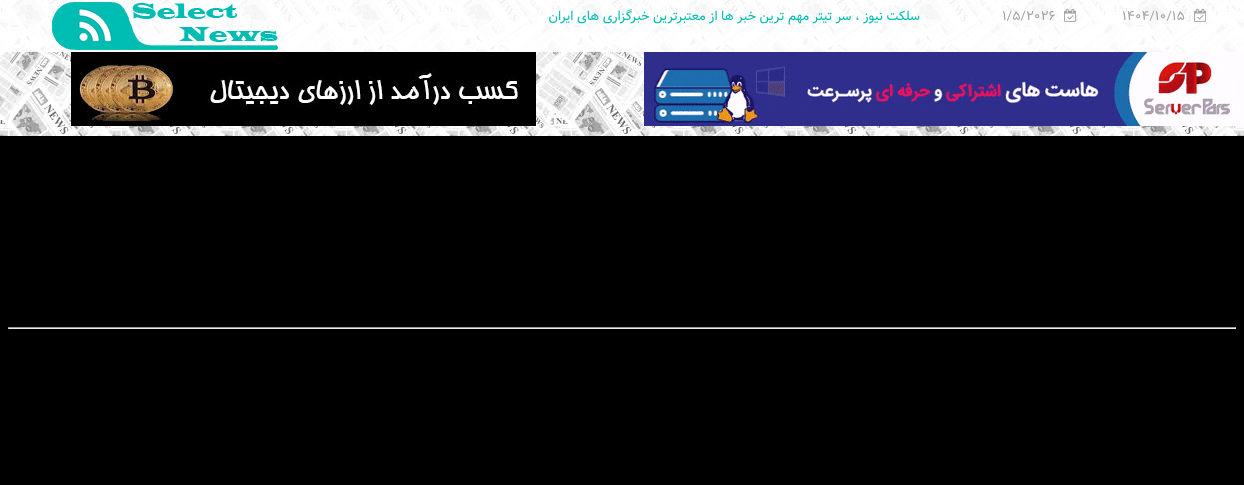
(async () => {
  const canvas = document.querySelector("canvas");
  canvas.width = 1244;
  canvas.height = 485;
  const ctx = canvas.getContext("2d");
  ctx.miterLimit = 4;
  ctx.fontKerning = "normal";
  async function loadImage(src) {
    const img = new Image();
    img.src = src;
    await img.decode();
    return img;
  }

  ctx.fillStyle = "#ffffff";
  ctx.fillRect(0, 0, 1244, 485);
  ctx.drawImage(await loadImage("img/1.png"), 0, 0, 1244, 136);
  ctx.fillStyle = "rgba(255, 255, 255, 0.9)";
  ctx.fillRect(0, 0, 1244, 52);
  ctx.drawImage(await loadImage("img/2.png"), 1194, 8, 13, 14);
  ctx.drawImage(await loadImage("img/3.png"), 1064, 8, 13, 14);
  ctx.drawImage(await loadImage("img/4.png"), 52, 2, 226, 48);
  ctx.drawImage(await loadImage("img/5.png"), 644, 52, 600, 74);
  ctx.drawImage(await loadImage("img/6.png"), 71, 52, 465, 74);
  ctx.fillStyle = "#000000";
  ctx.fillRect(0, 136, 1244, 349);
  ctx.drawImage(await loadImage("img/7.png"), 8, 327, 1228, 2);
  ctx.font = "13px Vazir";
  ctx.fillStyle = "#a3a3a3";
  ctx.fillText("1404/10/15", 1122, 20);
  ctx.fillText("1/5/2026", 1002, 20);
  ctx.direction = "rtl";
  ctx.fillStyle = "#00bdb3";
  ctx.fillText("سلکت نیوز ، سر تیتر مهم ترین خبر ها از معتبرترین خبرگزاری های ایران", 920, 20);
})();
